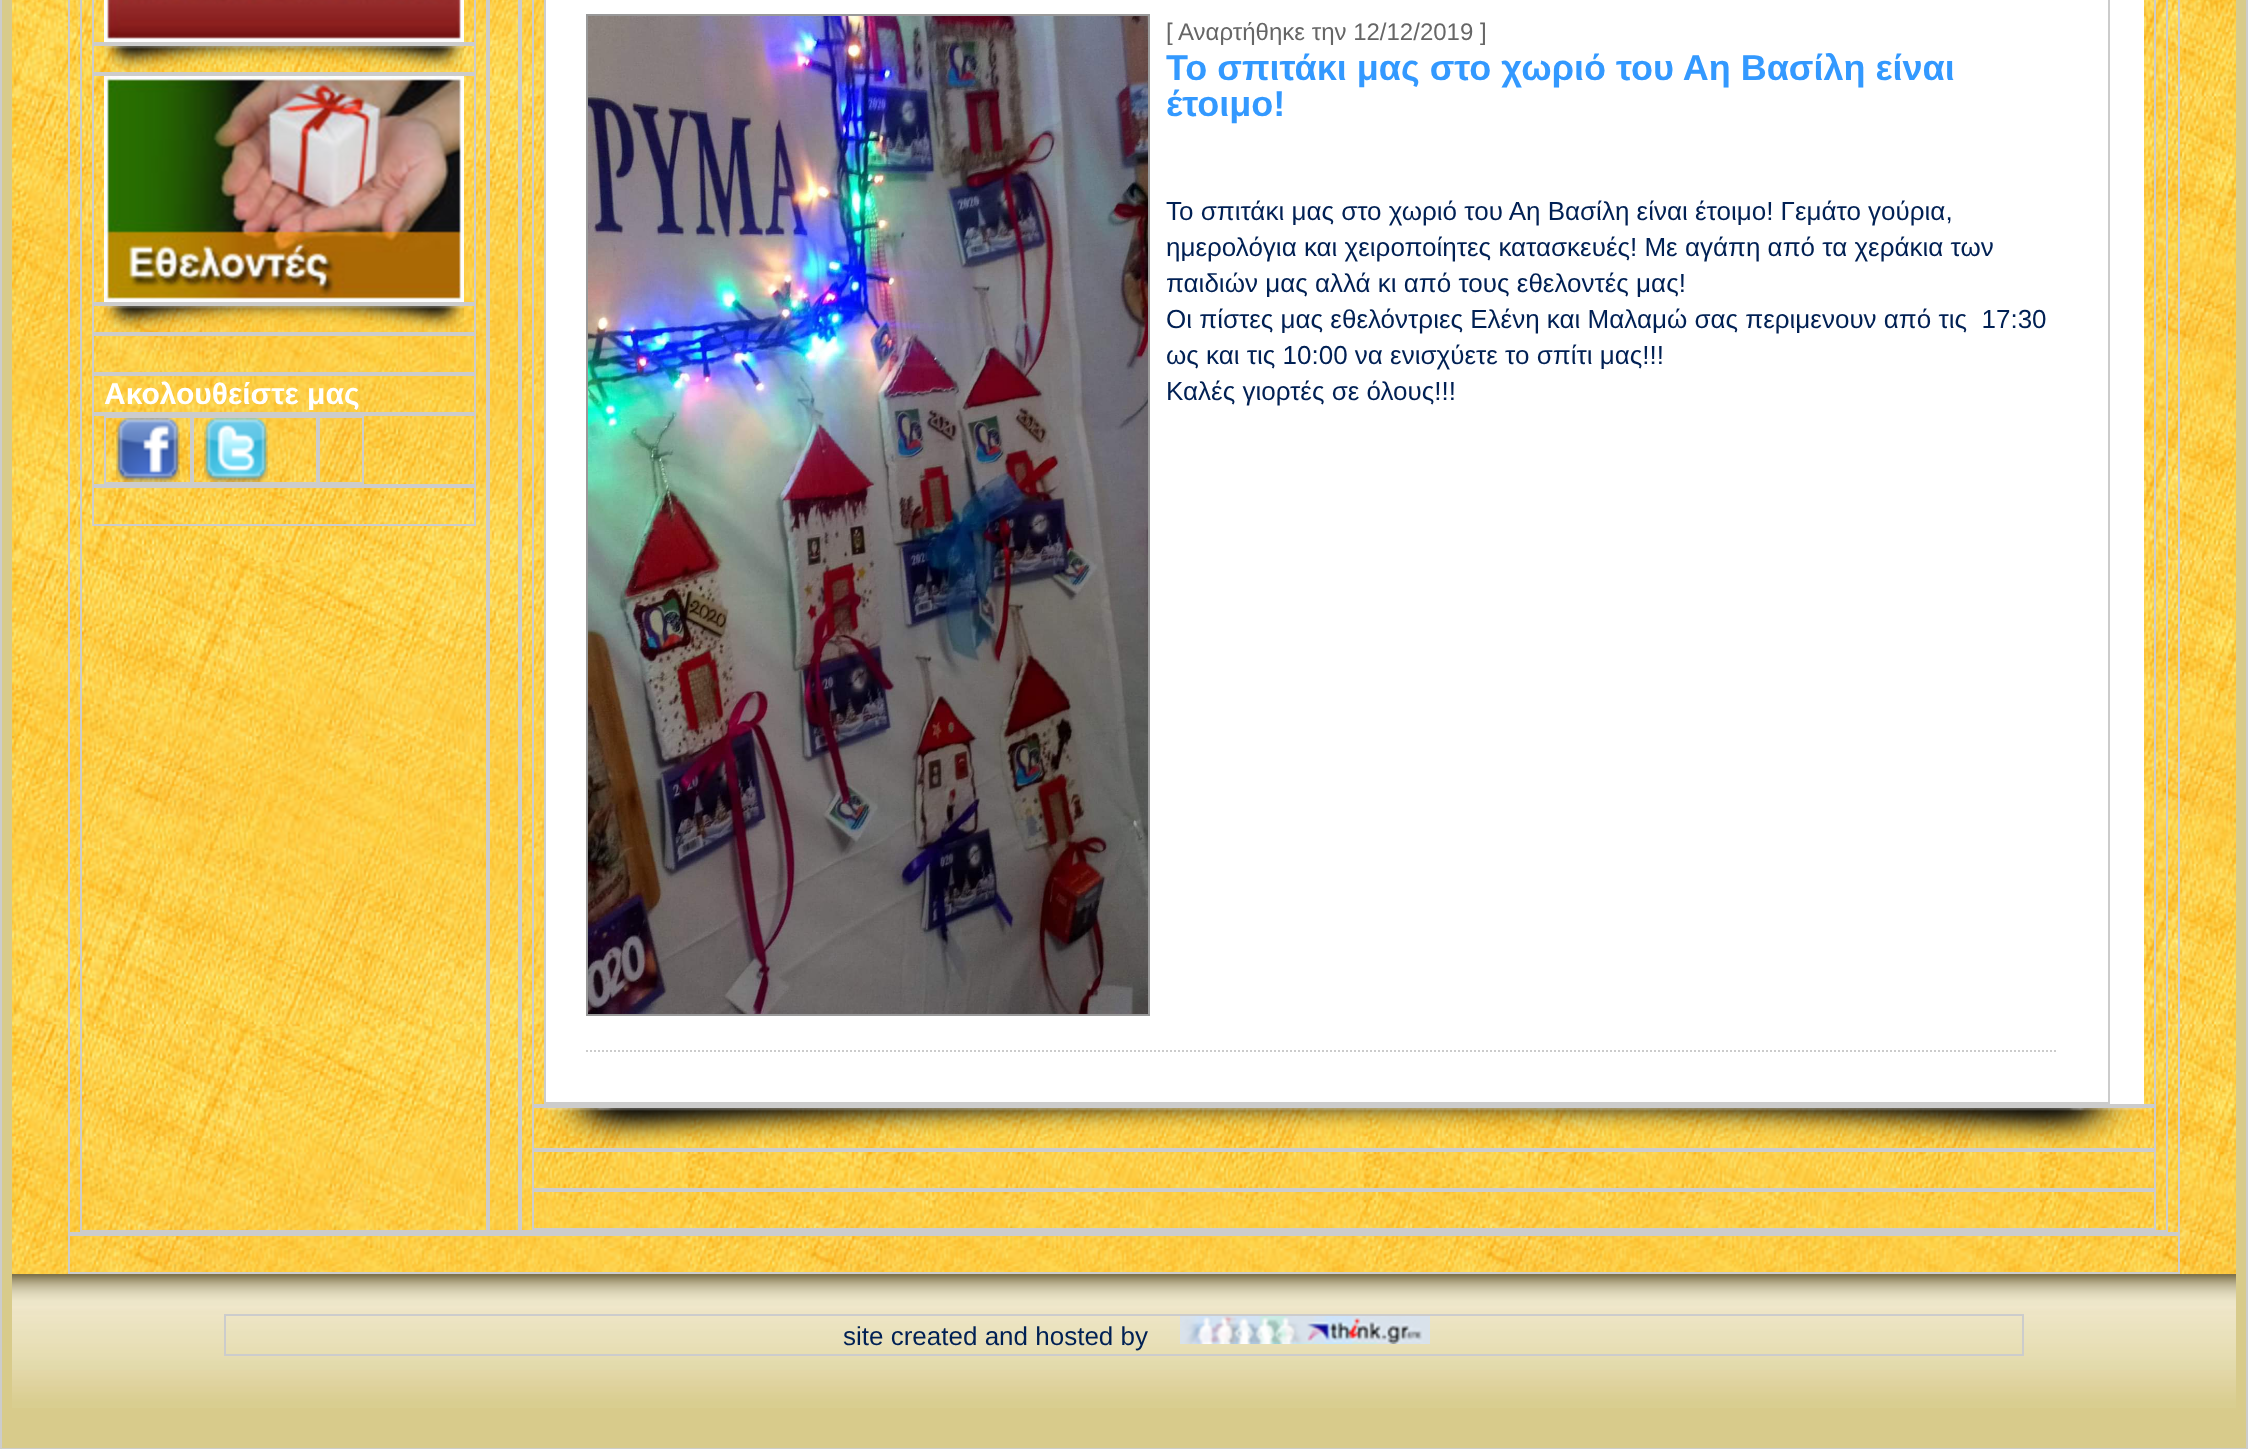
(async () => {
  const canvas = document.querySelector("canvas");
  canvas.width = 2248;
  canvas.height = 1449;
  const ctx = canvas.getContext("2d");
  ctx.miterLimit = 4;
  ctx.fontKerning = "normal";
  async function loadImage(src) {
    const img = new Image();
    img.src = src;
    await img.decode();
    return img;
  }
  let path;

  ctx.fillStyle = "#d8cb8b";
  ctx.fillRect(0, 0, 2248, 1449);
  ctx.strokeStyle = "#cccccc";
  ctx.lineWidth = 2;
  ctx.strokeRect(1, -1, 2246, 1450);
  ctx.drawImage(await loadImage("img/1.png"), 12, 0, 2224, 1274);
  ctx.strokeRect(69, -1, 2110, 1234);
  ctx.strokeRect(81, -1, 406, 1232);
  ctx.strokeRect(93, -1, 382, 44);
  ctx.drawImage(await loadImage("img/2.png"), 104, 0, 360, 42);
  ctx.strokeRect(93, 45, 382, 28);
  ctx.drawImage(await loadImage("img/3.png"), 104, 46, 360, 26);
  ctx.strokeRect(93, 75, 382, 228);
  ctx.drawImage(await loadImage("img/4.png"), 104, 76, 360, 226);
  ctx.strokeRect(93, 305, 382, 28);
  ctx.drawImage(await loadImage("img/5.png"), 104, 306, 360, 26);
  ctx.strokeRect(93, 335, 382, 38);
  ctx.strokeRect(93, 375, 382, 38);
  ctx.strokeRect(93, 415, 382, 70);
  ctx.strokeRect(105, 417, 86, 66);
  ctx.drawImage(await loadImage("img/6.png"), 116, 418, 64, 64);
  ctx.strokeRect(193, 417, 124, 66);
  ctx.drawImage(await loadImage("img/7.png"), 204, 418, 64, 64);
  ctx.strokeRect(319, 417, 44, 66);
  ctx.strokeRect(93, 487, 382, 38);
  ctx.strokeRect(489, -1, 30, 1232);
  ctx.strokeRect(521, -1, 1646, 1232);
  ctx.strokeRect(533, -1, 1622, 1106);
  ctx.fillStyle = "#ffffff";
  ctx.fillRect(546, 0, 1598, 1104);
  ctx.strokeRect(545, -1, 1564, 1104);
  path = new Path2D("M586 1051H2058");
  ctx.setLineDash([2, 2]);
  ctx.stroke(path);
  ctx.strokeStyle = "#999999";
  ctx.setLineDash([]);
  ctx.strokeRect(587, 15, 562, 1000);
  ctx.drawImage(await loadImage("img/8.png"), 588, 16, 560, 998);
  ctx.strokeStyle = "#cccccc";
  ctx.strokeRect(533, 1107, 1622, 42);
  ctx.drawImage(await loadImage("img/9.png"), 544, 1108, 1600, 40);
  ctx.strokeRect(533, 1151, 1622, 38);
  ctx.strokeRect(533, 1191, 1622, 38);
  ctx.strokeRect(69, 1235, 2110, 38);
  ctx.drawImage(await loadImage("img/10.png"), 12, 1274, 2224, 134);
  ctx.strokeRect(225, 1315, 1798, 40);
  ctx.drawImage(await loadImage("img/11.png"), 1180, 1316, 250, 28);
  ctx.font = "bold 30px Liberation Sans";
  ctx.fillText("Ακολουθείστε μας", 104, 404);
  ctx.font = "24px Liberation Sans";
  ctx.fillStyle = "#666666";
  ctx.fillText("[ Αναρτήθηκε την 12/12/2019 ]", 1166, 40);
  ctx.font = "bold 36px Liberation Sans";
  ctx.fillStyle = "#3399ff";
  ctx.fillText("Το σπιτάκι μας στο χωριό του Αη Βασίλη είναι", 1166, 80);
  ctx.fillText("έτοιμο!", 1166, 116);
  ctx.font = "26px Liberation Sans";
  ctx.fillStyle = "#002054";
  for (const [text, x, y] of [
    ["Το σπιτάκι μας στο χωριό του Αη Βασίλη είναι έτοιμο! Γεμάτο γούρια,", 1166, 220],
    ["ημερολόγια και χειροποίητες κατασκευές! Με αγάπη από τα χεράκια των", 1166, 256],
    ["παιδιών μας αλλά κι από τους εθελοντές μας!", 1166, 292],
    ["Οι πίστες μας εθελόντριες Ελένη και Μαλαμώ σας περιμενουν από τις  17:30", 1166, 328],
    ["ως και τις 10:00 να ενισχύετε το σπίτι μας!!!", 1166, 364],
    ["Καλές γιορτές σε όλους!!!", 1166, 400],
    ["site created and hosted by", 843, 1345],
  ]) {
    ctx.fillText(text, x, y);
  }
})();
